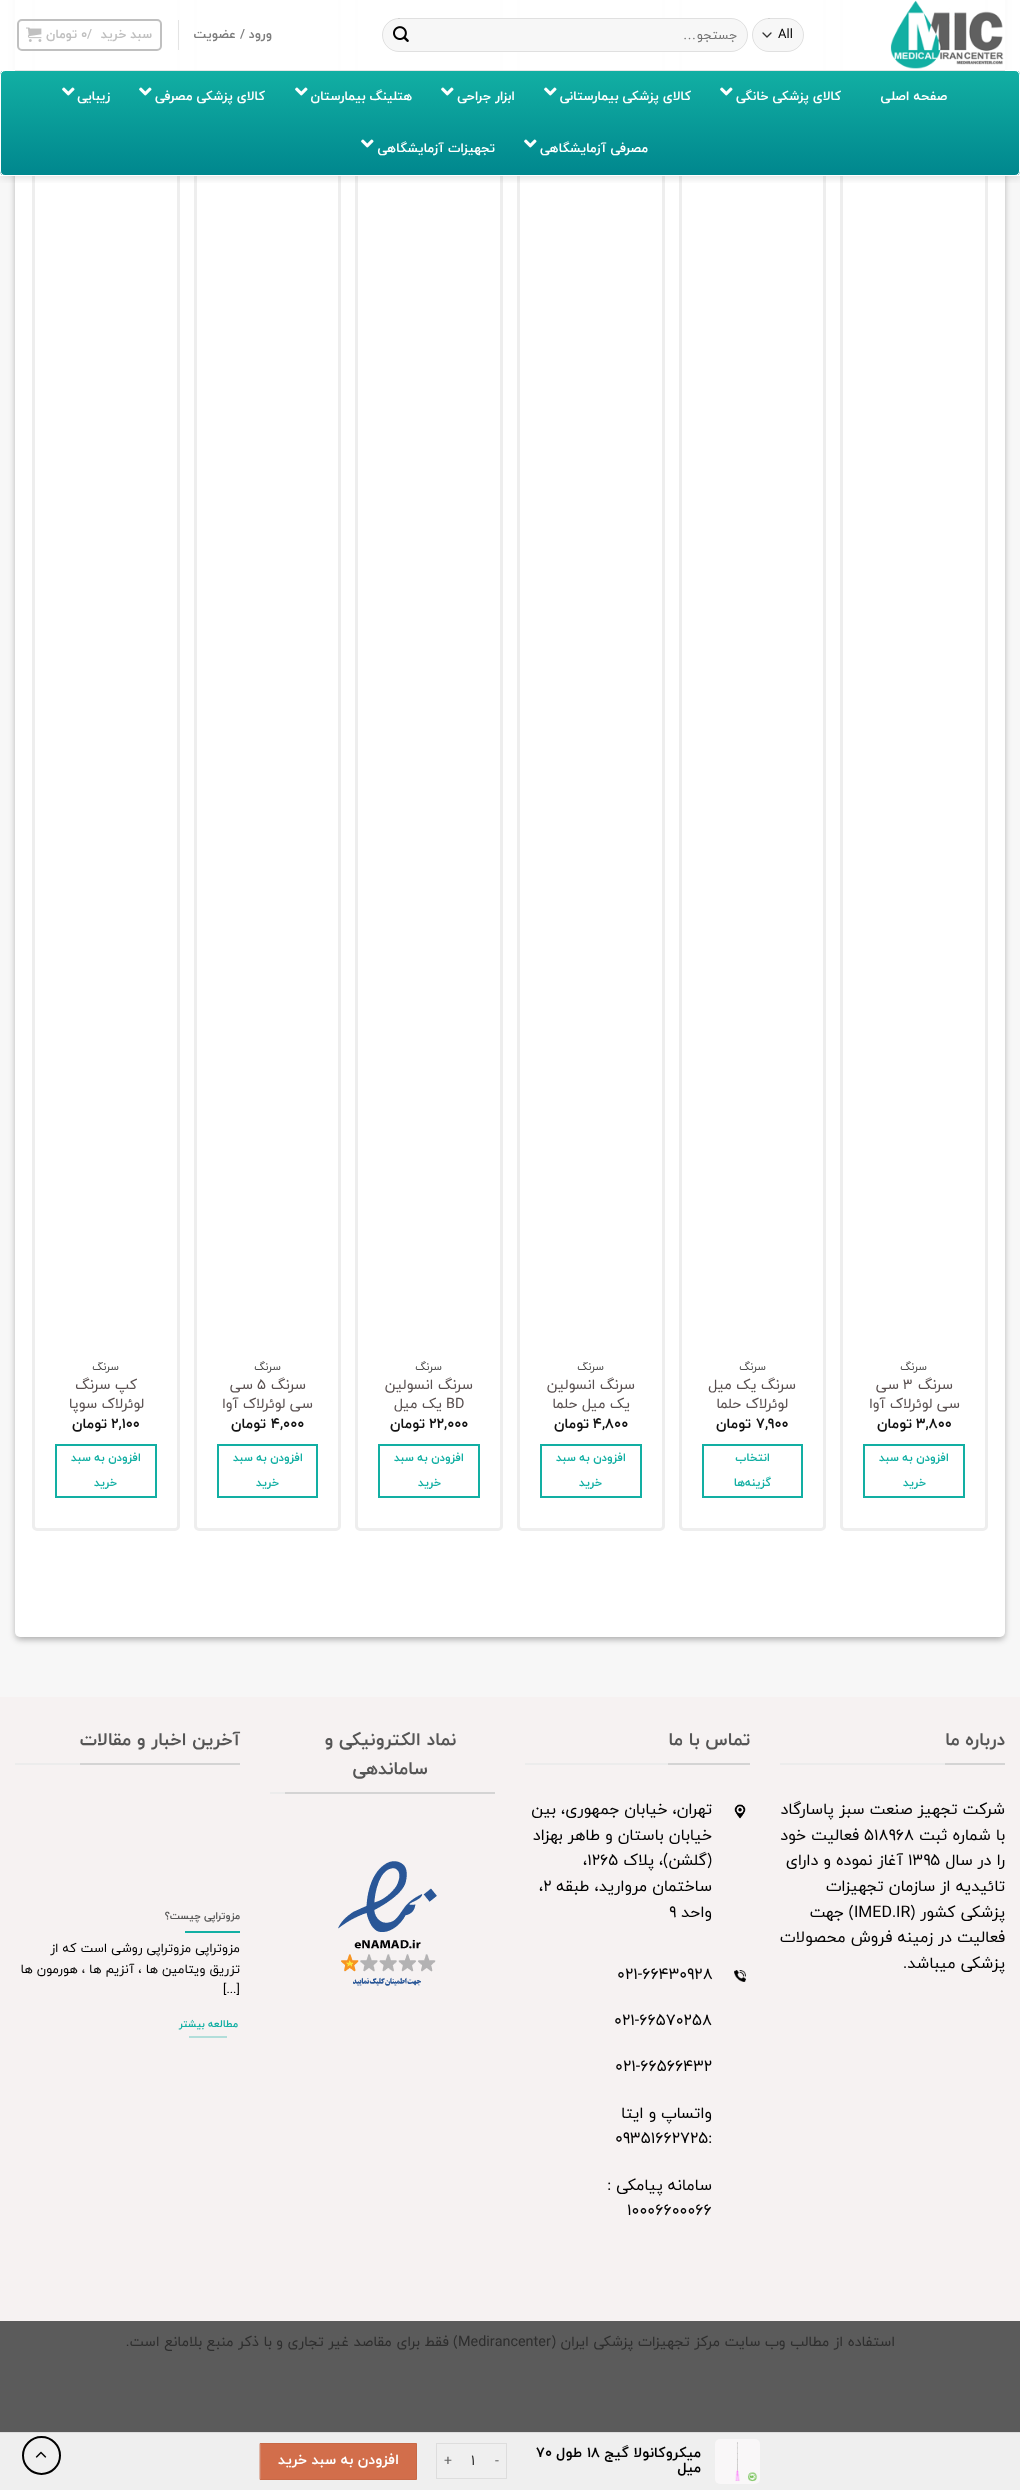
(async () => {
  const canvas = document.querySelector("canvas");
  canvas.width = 1020;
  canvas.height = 2490;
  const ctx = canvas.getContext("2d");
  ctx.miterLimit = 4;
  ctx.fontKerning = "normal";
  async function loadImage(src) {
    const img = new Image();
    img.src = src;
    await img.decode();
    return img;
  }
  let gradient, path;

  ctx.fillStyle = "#5b5b5b";
  ctx.fillRect(0, 0, 1020, 2490);
  ctx.fillStyle = "#f7f7f7";
  ctx.fillRect(0, 0, 1020, 1697);
  ctx.fillStyle = "rgba(0, 0, 0, 0.23)";
  ctx.filter = "blur(3px)";
  ctx.beginPath();
  ctx.roundRect(15, -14, 990, 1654, 5);
  ctx.fill();
  ctx.filter = "none";
  ctx.fillStyle = "rgba(0, 0, 0, 0.16)";
  ctx.filter = "blur(3px)";
  ctx.beginPath();
  ctx.roundRect(19, -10, 982, 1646, 1);
  ctx.fill();
  ctx.filter = "none";
  ctx.fillStyle = "#ffffff";
  ctx.beginPath();
  ctx.roundRect(15, -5, 990, 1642, 5);
  ctx.fill();
  ctx.beginPath();
  ctx.roundRect(841.5, -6.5, 145, 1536, 3.5);
  ctx.strokeStyle = "#eeeeee";
  ctx.lineWidth = 3;
  ctx.stroke();
  ctx.beginPath();
  ctx.roundRect(680.5, -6.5, 144, 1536, 3.5);
  ctx.stroke();
  ctx.beginPath();
  ctx.roundRect(518.5, -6.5, 145, 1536, 3.5);
  ctx.stroke();
  ctx.beginPath();
  ctx.roundRect(356.5, -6.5, 145, 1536, 3.5);
  ctx.stroke();
  ctx.beginPath();
  ctx.roundRect(195.5, -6.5, 144, 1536, 3.5);
  ctx.stroke();
  ctx.beginPath();
  ctx.roundRect(33.5, -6.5, 145, 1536, 3.5);
  ctx.stroke();
  ctx.save();
  ctx.beginPath();
  ctx.rect(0, 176, 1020, 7);
  ctx.clip();
  ctx.fillStyle = "rgba(0, 0, 0, 0.15)";
  ctx.filter = "blur(5px)";
  ctx.beginPath();
  ctx.rect(1, 1, 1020, 176);
  ctx.fill();
  ctx.filter = "none";
  ctx.restore();
  ctx.fillStyle = "rgba(255, 255, 255, 0.9)";
  ctx.fillRect(0, 0, 1020, 176);
  ctx.drawImage(await loadImage("img/1.png"), 890, 0, 114, 69);
  ctx.fillStyle = "#f7f7f7";
  ctx.beginPath();
  ctx.roundRect(752, 18, 52, 34, 17);
  ctx.fill();
  path = new Path2D("M763 33L767 37L771 33");
  ctx.strokeStyle = "#333333";
  ctx.lineWidth = 1.3;
  ctx.lineCap = "round";
  ctx.lineJoin = "round";
  ctx.stroke(path);
  ctx.beginPath();
  ctx.roundRect(752.5, 18.5, 51, 33, 16.5);
  ctx.strokeStyle = "rgba(0, 0, 0, 0.09)";
  ctx.lineWidth = 1;
  ctx.lineJoin = "miter";
  ctx.stroke();
  ctx.beginPath();
  ctx.roundRect(382, 18, 366, 34, 17);
  ctx.fill();
  ctx.beginPath();
  ctx.roundRect(382.5, 18.5, 365, 33, 16.5);
  ctx.stroke();
  ctx.drawImage(await loadImage("img/2.png"), 393, 26, 16, 16);
  ctx.fillStyle = "#e4e4e4";
  ctx.fillRect(178, 20, 1, 30);
  ctx.beginPath();
  ctx.roundRect(18, 20, 143, 30, 4);
  ctx.strokeStyle = "#c0c0c0";
  ctx.lineWidth = 2;
  ctx.stroke();
  ctx.drawImage(await loadImage("img/3.png"), 26, 27, 16, 15);
  ctx.save();
  ctx.beginPath();
  ctx.roundRect(0, 70, 1020, 106, 5);
  ctx.clip();
  gradient = ctx.createLinearGradient(510, 71, 510, 175);
  gradient.addColorStop(0, "#12afa3");
  gradient.addColorStop(1, "#00878e");
  ctx.fillStyle = gradient;
  ctx.fillRect(0, 71, 1020, 104);
  ctx.restore();
  ctx.beginPath();
  ctx.roundRect(0.5, 70.5, 1019, 105, 4.5);
  ctx.strokeStyle = "#ffffff";
  ctx.lineWidth = 1;
  ctx.stroke();
  ctx.fillStyle = "#e6e6e6";
  ctx.fillRect(15, 70, 990, 1);
  ctx.drawImage(await loadImage("img/4.png"), 720, 87, 13, 9);
  ctx.drawImage(await loadImage("img/4.png"), 544, 87, 13, 9);
  ctx.drawImage(await loadImage("img/4.png"), 441, 87, 13, 9);
  ctx.drawImage(await loadImage("img/4.png"), 295, 87, 13, 9);
  ctx.drawImage(await loadImage("img/4.png"), 139, 87, 13, 9);
  ctx.drawImage(await loadImage("img/4.png"), 62, 87, 13, 9);
  ctx.drawImage(await loadImage("img/5.png"), 524, 139, 13, 9);
  ctx.drawImage(await loadImage("img/5.png"), 361, 139, 13, 9);
  ctx.strokeStyle = "#12afa3";
  ctx.lineWidth = 2;
  ctx.strokeRect(864, 1445, 100, 52);
  ctx.strokeRect(703, 1445, 99, 52);
  ctx.strokeRect(541, 1445, 100, 52);
  ctx.strokeRect(379, 1445, 100, 52);
  ctx.strokeRect(218, 1445, 99, 52);
  ctx.strokeRect(56, 1445, 100, 52);
  for (const [x, y, w, h, color] of [
    [0, 1697, 1020, 624, "#f6f2f2"],
    [780, 1763, 165, 2, "#ececec"],
    [945, 1763, 60, 2, "#d4d4d4"],
    [525, 1763, 143, 2, "#ececec"],
    [668, 1763, 82, 2, "#d4d4d4"],
  ]) {
    ctx.fillStyle = color;
    ctx.fillRect(x, y, w, h);
  }
  ctx.drawImage(await loadImage("img/6.png"), 734, 1804, 12, 15);
  ctx.drawImage(await loadImage("img/7.png"), 734, 1970, 12, 12);
  ctx.fillStyle = "#ececec";
  ctx.fillRect(270, 1792, 15, 2);
  ctx.fillStyle = "#d4d4d4";
  ctx.fillRect(285, 1792, 210, 2);
  ctx.drawImage(await loadImage("img/8.png"), 338, 1861, 99, 125);
  for (const [x, y, w, h, color] of [
    [15, 1763, 65, 2, "#ececec"],
    [80, 1763, 160, 2, "#d4d4d4"],
    [185, 1931, 55, 2, "#12afa3"],
    [189, 2036, 38, 2, "#b2deda"],
    [0, 2433, 1020, 57, "#efefef"],
  ]) {
    ctx.fillStyle = color;
    ctx.fillRect(x, y, w, h);
  }
  ctx.beginPath();
  ctx.arc(41.5, 2455.5, 18.5, 0, Math.PI * 2);
  ctx.strokeStyle = "#000000";
  ctx.stroke();
  ctx.drawImage(await loadImage("img/9.png"), 35, 2451, 12, 7);
  ctx.fillStyle = "#dddddd";
  ctx.fillRect(0, 2432, 1020, 1);
  ctx.drawImage(await loadImage("img/10.png"), 715, 2439, 45, 45);
  for (const [x, y, w, h, color] of [
    [436, 2443, 71, 1, "#dddddd"],
    [506, 2443, 1, 36, "#dddddd"],
    [488, 2478, 19, 1, "#dddddd"],
    [436, 2478, 52, 1, "#dddddd"],
    [436, 2443, 1, 36, "#dddddd"],
  ]) {
    ctx.fillStyle = color;
    ctx.fillRect(x, y, w, h);
  }
  ctx.fillStyle = "#d26e4b";
  ctx.beginPath();
  ctx.rect(260.5, 2443.5, 156, 36);
  ctx.fill();
  ctx.strokeStyle = "#c86947";
  ctx.lineWidth = 1;
  ctx.stroke();
  ctx.font = "13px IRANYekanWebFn";
  ctx.fillStyle = "#000000";
  ctx.fillText("All", 778, 38);
  ctx.direction = "rtl";
  ctx.fillStyle = "#757575";
  ctx.fillText("جستجو", 737, 39);
  ctx.font = "13px Liberation Serif";
  ctx.fillText("…", 696, 39);
  ctx.font = "bold 12.75px IRANYekanWebFn";
  ctx.fillStyle = "#7d7d7d";
  ctx.fillText("ورود", 272, 38);
  ctx.fillText("/ عضویت", 245, 38);
  ctx.fillStyle = "#c0c0c0";
  ctx.fillText("سبد خرید", 152, 38);
  ctx.direction = "ltr";
  ctx.fillText("/", 87, 38);
  ctx.fillText("0", 81, 38);
  ctx.direction = "rtl";
  ctx.fillText("تومان", 77, 38);
  ctx.font = "bold 13px IRANYekanWebFn";
  ctx.fillStyle = "#ffffff";
  for (const [text, x, y] of [
    ["صفحه اصلی", 947, 100],
    ["کالای پزشکی خانگی", 841, 100],
    ["کالای پزشکی بیمارستانی", 691, 100],
    ["ابزار جراحی", 515, 100],
    ["هتلینگ بیمارستان", 412, 100],
    ["کالای پزشکی مصرفی", 265, 100],
    ["زیبایی", 110, 100],
    ["مصرفی آزمایشگاهی", 648, 152],
    ["تجهیزات آزمایشگاهی", 495, 152],
  ]) {
    ctx.fillText(text, x, y);
  }
  ctx.font = "11px IRANYekanWebFn";
  ctx.fillStyle = "#4d4d4d";
  ctx.fillText("سرنگ", 927, 1370);
  ctx.font = "14.4px IRANYekanWebFn";
  ctx.fillStyle = "#584f4f";
  ctx.fillText("سرنگ", 953, 1389);
  ctx.direction = "ltr";
  ctx.fillText("3", 903, 1389);
  ctx.direction = "rtl";
  ctx.fillText("سی", 899, 1389);
  ctx.fillText("سی لوئرلاک آوا", 960, 1408);
  ctx.direction = "ltr";
  ctx.font = "bold 14.4px IRANYekanWebFn";
  ctx.fillStyle = "#111111";
  ctx.fillText("3,800", 916, 1428);
  ctx.direction = "rtl";
  ctx.fillText("تومان", 912, 1428);
  ctx.font = "bold 11.5px IRANYekanWebFn";
  ctx.fillStyle = "#12afa3";
  ctx.fillText("افزودن به سبد", 949, 1461);
  ctx.fillText("خرید", 926, 1486);
  ctx.font = "11px IRANYekanWebFn";
  ctx.fillStyle = "#4d4d4d";
  ctx.fillText("سرنگ", 766, 1370);
  ctx.font = "14.4px IRANYekanWebFn";
  ctx.fillStyle = "#584f4f";
  ctx.fillText("سرنگ یک میل", 796, 1389);
  ctx.fillText("لوئرلاک حلما", 788, 1408);
  ctx.direction = "ltr";
  ctx.font = "bold 14.4px IRANYekanWebFn";
  ctx.fillStyle = "#111111";
  ctx.fillText("7,900", 756, 1428);
  ctx.direction = "rtl";
  ctx.fillText("تومان", 751, 1428);
  ctx.font = "bold 11.5px IRANYekanWebFn";
  ctx.fillStyle = "#12afa3";
  ctx.fillText("انتخاب", 770, 1461);
  ctx.fillText("گزینه‌ها", 771, 1486);
  ctx.save();
  ctx.beginPath();
  ctx.rect(540, 1362, 102, 13);
  ctx.clip();
  ctx.font = "11px IRANYekanWebFn";
  ctx.fillStyle = "#4d4d4d";
  ctx.fillText("سرنگ", 604, 1370);
  ctx.restore();
  ctx.font = "14.4px IRANYekanWebFn";
  ctx.fillStyle = "#584f4f";
  ctx.fillText("سرنگ انسولین", 635, 1389);
  ctx.fillText("یک میل حلما", 630, 1408);
  ctx.direction = "ltr";
  ctx.font = "bold 14.4px IRANYekanWebFn";
  ctx.fillStyle = "#111111";
  ctx.fillText("4,800", 593, 1428);
  ctx.direction = "rtl";
  ctx.fillText("تومان", 589, 1428);
  ctx.font = "bold 11.5px IRANYekanWebFn";
  ctx.fillStyle = "#12afa3";
  ctx.fillText("افزودن به سبد", 626, 1461);
  ctx.fillText("خرید", 602, 1486);
  ctx.font = "11px IRANYekanWebFn";
  ctx.fillStyle = "#4d4d4d";
  ctx.fillText("سرنگ", 442, 1370);
  ctx.font = "14.4px IRANYekanWebFn";
  ctx.fillStyle = "#584f4f";
  ctx.fillText("سرنگ انسولین", 473, 1389);
  ctx.direction = "ltr";
  ctx.fillText("BD", 446, 1408);
  ctx.direction = "rtl";
  ctx.fillText("یک میل", 442, 1408);
  ctx.direction = "ltr";
  ctx.font = "bold 14.4px IRANYekanWebFn";
  ctx.fillStyle = "#111111";
  ctx.fillText("22,000", 429, 1428);
  ctx.direction = "rtl";
  ctx.fillText("تومان", 425, 1428);
  ctx.font = "bold 11.5px IRANYekanWebFn";
  ctx.fillStyle = "#12afa3";
  ctx.fillText("افزودن به سبد", 464, 1461);
  ctx.fillText("خرید", 441, 1486);
  ctx.font = "11px IRANYekanWebFn";
  ctx.fillStyle = "#4d4d4d";
  ctx.fillText("سرنگ", 281, 1370);
  ctx.font = "14.4px IRANYekanWebFn";
  ctx.fillStyle = "#584f4f";
  ctx.fillText("سرنگ", 306, 1389);
  ctx.direction = "ltr";
  ctx.fillText("5", 257, 1389);
  ctx.direction = "rtl";
  ctx.fillText("سی", 253, 1389);
  ctx.fillText("سی لوئرلاک آوا", 313, 1408);
  ctx.direction = "ltr";
  ctx.font = "bold 14.4px IRANYekanWebFn";
  ctx.fillStyle = "#111111";
  ctx.fillText("4,000", 271, 1428);
  ctx.direction = "rtl";
  ctx.fillText("تومان", 266, 1428);
  ctx.font = "bold 11.5px IRANYekanWebFn";
  ctx.fillStyle = "#12afa3";
  ctx.fillText("افزودن به سبد", 303, 1461);
  ctx.fillText("خرید", 279, 1486);
  ctx.save();
  ctx.beginPath();
  ctx.rect(55, 1362, 102, 13);
  ctx.clip();
  ctx.font = "11px IRANYekanWebFn";
  ctx.fillStyle = "#4d4d4d";
  ctx.fillText("سرنگ", 119, 1370);
  ctx.restore();
  ctx.font = "14.4px IRANYekanWebFn";
  ctx.fillStyle = "#584f4f";
  ctx.fillText("کپ سرنگ", 137, 1389);
  ctx.fillText("لوئرلاک سوپا", 144, 1408);
  ctx.direction = "ltr";
  ctx.font = "bold 14.4px IRANYekanWebFn";
  ctx.fillStyle = "#111111";
  ctx.fillText("2,100", 111, 1428);
  ctx.direction = "rtl";
  ctx.fillText("تومان", 107, 1428);
  ctx.font = "bold 11.5px IRANYekanWebFn";
  ctx.fillStyle = "#12afa3";
  ctx.fillText("افزودن به سبد", 141, 1461);
  ctx.fillText("خرید", 117, 1486);
  ctx.font = "bold 18px IRANYekanWebFn";
  ctx.fillStyle = "#555555";
  ctx.fillText("درباره ما", 1005, 1745);
  ctx.font = "16px IRANYekanWebFn";
  ctx.fillStyle = "#000000";
  ctx.fillText("شرکت تجهیز صنعت سبز پاسارگاد", 1005, 1814);
  ctx.fillText("با شماره ثبت", 1005, 1840);
  ctx.direction = "ltr";
  ctx.fillText("۵۱۸۹۶۸", 864, 1840);
  ctx.direction = "rtl";
  ctx.fillText("فعالیت خود", 859, 1840);
  ctx.fillText("را در سال", 1005, 1865);
  ctx.direction = "ltr";
  ctx.fillText("۱۳۹۵", 908, 1865);
  ctx.direction = "rtl";
  for (const [text, x, y] of [
    ["آغاز نموده و دارای", 903, 1865],
    ["تائیدیه از سازمان تجهیزات", 1005, 1891],
    ["پزشکی کشور (", 1005, 1917],
  ]) {
    ctx.fillText(text, x, y);
  }
  ctx.direction = "ltr";
  ctx.fillText("IMED.IR", 854, 1917);
  ctx.direction = "rtl";
  for (const [text, x, y] of [
    [") جهت", 854, 1917],
    ["فعالیت در زمینه فروش محصولات", 1005, 1942],
    ["پزشکی میباشد.", 1005, 1968],
  ]) {
    ctx.fillText(text, x, y);
  }
  ctx.font = "bold 18px IRANYekanWebFn";
  ctx.fillStyle = "#555555";
  ctx.fillText("تماس با ما", 750, 1745);
  ctx.font = "16px IRANYekanWebFn";
  ctx.fillStyle = "#000000";
  for (const [text, x, y] of [
    ["تهران، خیابان جمهوری، بین", 712, 1814],
    ["خیابان باستان و طاهر بهزاد", 712, 1840],
    ["(گلشن)، پلاک", 712, 1865],
  ]) {
    ctx.fillText(text, x, y);
  }
  ctx.direction = "ltr";
  ctx.fillText("،۱۲۶۵", 583, 1865);
  ctx.direction = "rtl";
  ctx.fillText("ساختمان مروارید، طبقه", 712, 1891);
  ctx.direction = "ltr";
  ctx.fillText("،۲", 539, 1891);
  ctx.direction = "rtl";
  ctx.fillText("واحد", 712, 1917);
  ctx.direction = "ltr";
  for (const [text, x, y] of [
    ["۹", 669, 1917],
    ["021-66430928", 617, 1979],
    ["021-66570258", 614, 2025],
    ["021-66566432", 615, 2071],
  ]) {
    ctx.fillText(text, x, y);
  }
  ctx.direction = "rtl";
  ctx.fillText("واتساپ و ایتا", 712, 2118);
  ctx.direction = "ltr";
  ctx.fillText("09351662725:", 615, 2143);
  ctx.direction = "rtl";
  ctx.fillText("سامانه پیامکی :", 712, 2190);
  ctx.direction = "ltr";
  ctx.fillText("10006600066", 627, 2215);
  ctx.direction = "rtl";
  ctx.font = "bold 18px IRANYekanWebFn";
  ctx.fillStyle = "#555555";
  for (const [text, x, y] of [
    ["نماد الکترونیکی و", 456, 1745],
    ["ساماندهی", 428, 1774],
    ["آخرین اخبار و مقالات", 240, 1745],
  ]) {
    ctx.fillText(text, x, y);
  }
  ctx.font = "bold 10.25px IRANYekanWebFn";
  ctx.fillText("مزوتراپی چیست؟", 240, 1919);
  ctx.font = "12.75px IRANYekanWebFn";
  ctx.fillStyle = "#000000";
  ctx.fillText("مزوتراپی مزوتراپی روشی است که از", 240, 1952);
  ctx.fillText("تزریق ویتامین ها ، آنزیم ها ، هورمون ها", 240, 1973);
  ctx.direction = "ltr";
  ctx.fillText("[...]", 223, 1993);
  ctx.direction = "rtl";
  ctx.font = "bold 10.25px IRANYekanWebFn";
  ctx.fillStyle = "#12afa3";
  ctx.fillText("مطالعه بیشتر", 238, 2027);
  ctx.font = "14.4px IRANYekanWebFn";
  ctx.fillStyle = "#2e2e2e";
  ctx.fillText("استفاده از مطالب وب سایت مرکز تجهیزات پزشکی ایران (", 895, 2346);
  ctx.direction = "ltr";
  ctx.fillText("Medirancenter", 458, 2346);
  ctx.direction = "rtl";
  ctx.fillText(") فقط برای مقاصد غیر تجاری و با ذکر منبع بلامانع است.", 458, 2346);
  ctx.font = "bold 14.4px IRANYekanWebFn";
  ctx.fillStyle = "#000000";
  ctx.fillText("میکروکانولا گیج", 701, 2457);
  ctx.direction = "ltr";
  ctx.fillText("18", 587, 2457);
  ctx.direction = "rtl";
  ctx.fillText("طول", 582, 2457);
  ctx.direction = "ltr";
  ctx.fillText("70", 536, 2457);
  ctx.direction = "rtl";
  ctx.fillText("میل", 701, 2472);
  ctx.direction = "ltr";
  ctx.font = "14px IRANYekanWebFn";
  ctx.fillStyle = "#666666";
  ctx.fillText("-", 495, 2465);
  ctx.font = "14.4px IRANYekanWebFn";
  ctx.fillStyle = "#2e2e2e";
  ctx.fillText("1", 471, 2465);
  ctx.font = "14px IRANYekanWebFn";
  ctx.fillStyle = "#666666";
  ctx.fillText("+", 444, 2465);
  ctx.direction = "rtl";
  ctx.font = "bold 14.4px IRANYekanWebFn";
  ctx.fillStyle = "#ffffff";
  ctx.fillText("افزودن به سبد خرید", 399, 2464);
})();
